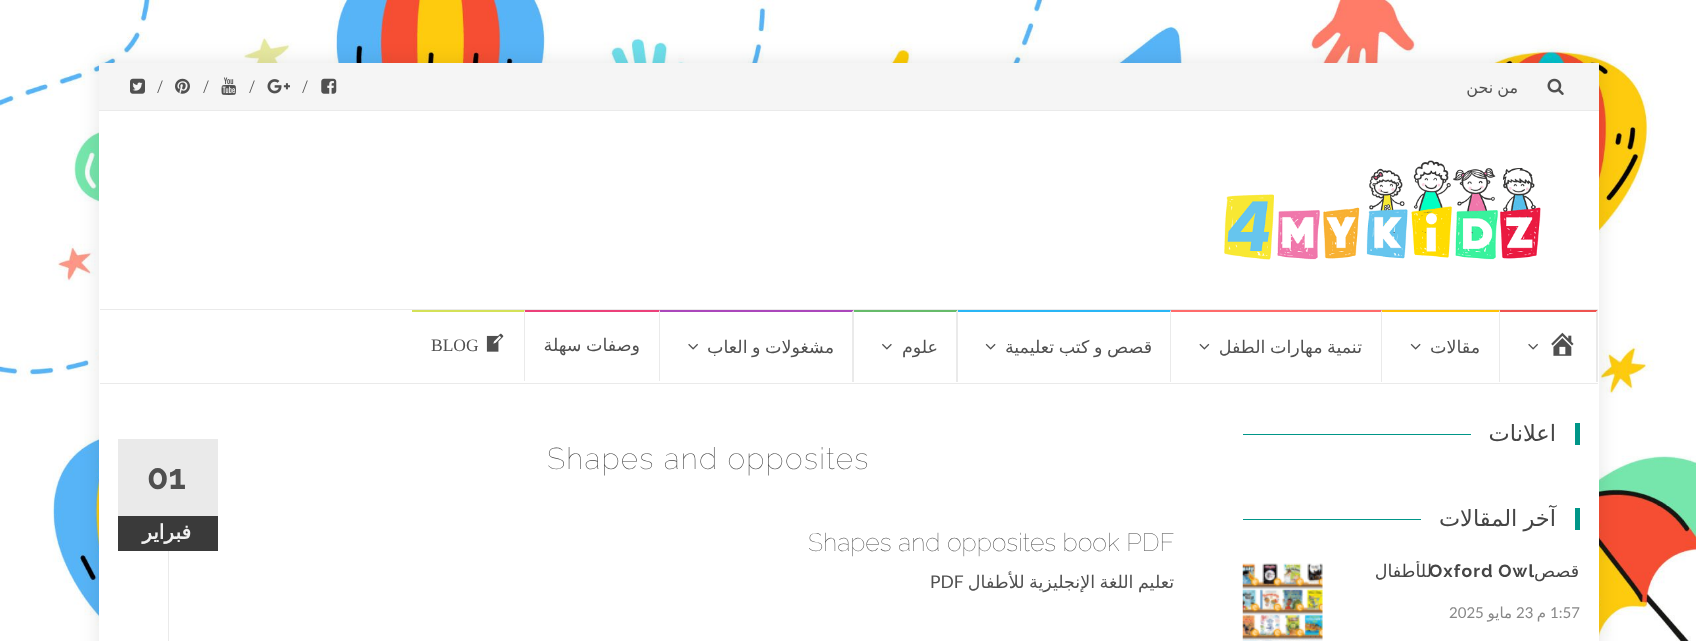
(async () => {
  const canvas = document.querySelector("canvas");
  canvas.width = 1696;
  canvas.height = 641;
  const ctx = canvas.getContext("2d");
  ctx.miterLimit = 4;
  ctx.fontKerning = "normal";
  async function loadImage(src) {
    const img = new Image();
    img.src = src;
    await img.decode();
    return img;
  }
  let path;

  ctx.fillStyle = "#ffffff";
  ctx.fillRect(0, 0, 1696, 641);
  ctx.drawImage(await loadImage("img/1.png"), 0, 0, 1696, 641);
  ctx.fillStyle = "rgba(0, 0, 0, 0.1)";
  ctx.filter = "blur(9.5px)";
  ctx.beginPath();
  ctx.rect(99, 63, 1500, 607);
  ctx.fill();
  ctx.filter = "none";
  for (const [x, y, w, h, color] of [
    [99, 111, 1500, 530, "#ffffff"],
    [99, 63, 1500, 47, "#f5f5f5"],
    [99, 110, 1500, 1, "#eaeaea"],
  ]) {
    ctx.fillStyle = color;
    ctx.fillRect(x, y, w, h);
  }
  ctx.drawImage(await loadImage("img/2.png"), 1547, 78, 17, 17);
  ctx.drawImage(await loadImage("img/3.png"), 321, 78, 16, 16);
  ctx.drawImage(await loadImage("img/4.png"), 267, 79, 23, 15);
  ctx.drawImage(await loadImage("img/5.png"), 221, 77, 15, 18);
  ctx.drawImage(await loadImage("img/6.png"), 175, 78, 15, 16);
  ctx.drawImage(await loadImage("img/7.png"), 130, 78, 15, 16);
  ctx.drawImage(await loadImage("img/8.png"), 1224, 160, 317, 100);
  ctx.fillRect(100, 309, 1498, 1);
  ctx.fillRect(100, 383, 1498, 1);
  ctx.fillStyle = "#ef5350";
  path = new Path2D("M1500 310H1598L1596 312H1500Z");
  ctx.fill(path);
  ctx.fillStyle = "#eaeaea";
  path = new Path2D("M1598 310V382H1596V312Z");
  ctx.fill(path);
  ctx.drawImage(await loadImage("img/9.png"), 1551, 332, 23, 24);
  ctx.drawImage(await loadImage("img/10.png"), 1528, 343, 10, 7);
  ctx.fillStyle = "#ffc107";
  path = new Path2D("M1382 310H1500L1499 312H1382Z");
  ctx.fill(path);
  ctx.fillStyle = "#eaeaea";
  path = new Path2D("M1500 310V382H1499V312Z");
  ctx.fill(path);
  ctx.drawImage(await loadImage("img/11.png"), 1410, 343, 11, 7);
  ctx.fillStyle = "#ff6b6b";
  path = new Path2D("M1171 310H1382L1381 312H1171Z");
  ctx.fill(path);
  ctx.fillStyle = "#eaeaea";
  path = new Path2D("M1382 310V382H1381V312Z");
  ctx.fill(path);
  ctx.drawImage(await loadImage("img/12.png"), 1199, 343, 11, 7);
  ctx.fillStyle = "#29b6f6";
  path = new Path2D("M958 310H1171L1170 312H958Z");
  ctx.fill(path);
  ctx.fillStyle = "#eaeaea";
  path = new Path2D("M1171 310V382H1170V312Z");
  ctx.fill(path);
  ctx.drawImage(await loadImage("img/11.png"), 985, 343, 11, 7);
  ctx.fillStyle = "#66bb6a";
  path = new Path2D("M854 310H958L956 312H854Z");
  ctx.fill(path);
  ctx.fillStyle = "#eaeaea";
  path = new Path2D("M958 310V382H956V312Z");
  ctx.fill(path);
  ctx.drawImage(await loadImage("img/13.png"), 882, 343, 10, 7);
  ctx.fillStyle = "#ab47bc";
  path = new Path2D("M660 310H854L852 312H660Z");
  ctx.fill(path);
  ctx.fillStyle = "#eaeaea";
  path = new Path2D("M854 310V382H852V312Z");
  ctx.fill(path);
  ctx.drawImage(await loadImage("img/10.png"), 688, 343, 10, 7);
  ctx.fillStyle = "#ec407a";
  path = new Path2D("M525 310H660L659 312H525Z");
  ctx.fill(path);
  ctx.fillStyle = "#eaeaea";
  path = new Path2D("M660 310V381H659V312Z");
  ctx.fill(path);
  ctx.fillStyle = "#d4e157";
  path = new Path2D("M412 310H525L524 312H412Z");
  ctx.fill(path);
  ctx.fillStyle = "#eaeaea";
  path = new Path2D("M525 310V381H524V312Z");
  ctx.fill(path);
  ctx.drawImage(await loadImage("img/14.png"), 486, 333, 18, 19);
  for (const [x, y, w, h, color] of [
    [1575, 423, 5, 22, "#009688"],
    [1243, 434, 228, 1, "#009688"],
    [1575, 508, 5, 22, "#009688"],
    [1243, 519, 178, 1, "#009688"],
  ]) {
    ctx.fillStyle = color;
    ctx.fillRect(x, y, w, h);
  }
  ctx.drawImage(await loadImage("img/15.png"), 1242, 563, 81, 78);
  for (const [x, y, w, h, color] of [
    [118, 439, 100, 77, "#eaeaea"],
    [118, 516, 100, 35, "#3a3a3a"],
    [168, 551, 1, 90, "#eaeaea"],
  ]) {
    ctx.fillStyle = color;
    ctx.fillRect(x, y, w, h);
  }
  ctx.wordSpacing = "-1px";
  ctx.direction = "rtl";
  ctx.font = "16px DejaVu Sans";
  ctx.fillStyle = "#505050";
  ctx.fillText("من نحن", 1518, 93);
  ctx.wordSpacing = "0px";
  ctx.direction = "ltr";
  ctx.font = "300 17.5px Open Sans";
  for (const [text, x, y] of [
    ["/", 302, 93],
    ["/", 249, 93],
    ["/", 203, 93],
    ["/", 157, 93],
  ]) {
    ctx.fillText(text, x, y);
  }
  ctx.direction = "rtl";
  ctx.font = "17.5px DejaVu Sans";
  ctx.fillText("مقالات", 1480, 353);
  ctx.wordSpacing = "-1px";
  ctx.fillText("تنمية مهارات الطفل", 1362, 353);
  ctx.fillText("قصص و كتب تعليمية", 1152, 353);
  ctx.wordSpacing = "0px";
  ctx.fillText("علوم", 938, 353);
  ctx.wordSpacing = "-1px";
  ctx.fillText("مشغولات و العاب", 834, 353);
  ctx.fillText("وصفات سهلة", 640, 351);
  ctx.wordSpacing = "0px";
  ctx.direction = "ltr";
  ctx.font = "17.5px Liberation Serif";
  ctx.fillText("BLOG", 431, 351);
  ctx.direction = "rtl";
  ctx.font = "22.5px DejaVu Sans";
  ctx.fillStyle = "#454545";
  ctx.fillText("اعلانات", 1556, 441);
  ctx.wordSpacing = "-1px";
  ctx.fillText("آخر المقالات", 1556, 526);
  ctx.letterSpacing = "1.25px";
  ctx.direction = "ltr";
  ctx.font = "bold 17.5px Raleway";
  ctx.fillText("Oxford Owl", 1429, 577);
  ctx.wordSpacing = "0px";
  ctx.direction = "rtl";
  ctx.font = "17.5px DejaVu Sans";
  ctx.fillText("قصص", 1579, 577);
  ctx.save();
  ctx.beginPath();
  ctx.rect(1335, 561, 245, 64);
  ctx.clip();
  ctx.fillText("للأطفال", 1432, 577);
  ctx.restore();
  ctx.letterSpacing = "0px";
  ctx.direction = "ltr";
  ctx.font = "15px Lato";
  ctx.fillStyle = "#888888";
  ctx.fillText("1:57", 1550, 618);
  ctx.direction = "rtl";
  ctx.font = "15px DejaVu Sans";
  ctx.fillText("م", 1546, 618);
  ctx.direction = "ltr";
  ctx.font = "15px Lato";
  ctx.fillText("23", 1516, 618);
  ctx.direction = "rtl";
  ctx.font = "15px DejaVu Sans";
  ctx.fillText("مايو", 1512, 618);
  ctx.direction = "ltr";
  ctx.font = "15px Lato";
  ctx.fillText("2025", 1449, 618);
  ctx.letterSpacing = "1.25px";
  ctx.font = "100 30px Raleway";
  ctx.fillStyle = "#454545";
  ctx.fillText("Shapes and opposites", 547, 469);
  ctx.letterSpacing = "0px";
  ctx.font = "bold 35px Raleway";
  ctx.fillStyle = "#505050";
  ctx.fillText("01", 147, 489);
  ctx.direction = "rtl";
  ctx.font = "bold 20px DejaVu Sans";
  ctx.fillStyle = "#f1f1f1";
  ctx.fillText("فبراير", 191, 539);
  ctx.direction = "ltr";
  ctx.font = "100 25px Raleway";
  ctx.fillStyle = "#454545";
  ctx.fillText("Shapes and opposites book PDF", 808, 551);
  ctx.wordSpacing = "-1px";
  ctx.direction = "rtl";
  ctx.font = "17.5px DejaVu Sans";
  ctx.fillStyle = "#505050";
  ctx.fillText("تعليم اللغة الإنجليزية للأطفال", 1174, 588);
  ctx.wordSpacing = "0px";
  ctx.direction = "ltr";
  ctx.font = "17.5px Lato";
  ctx.fillText("PDF", 930, 588);
})();
